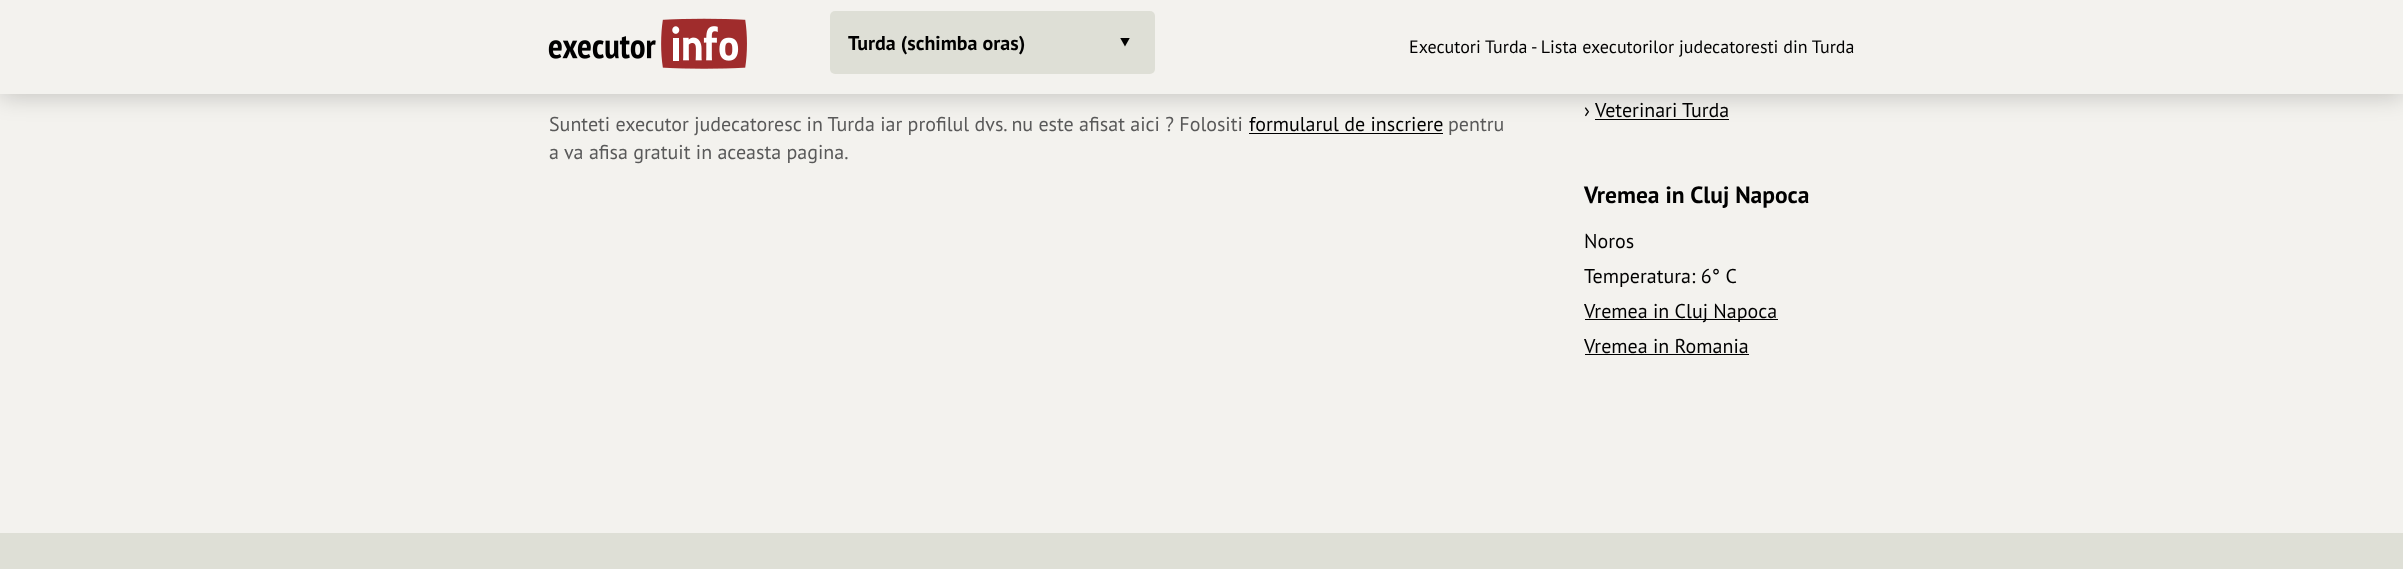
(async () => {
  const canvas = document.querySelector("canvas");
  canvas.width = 2403;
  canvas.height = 569;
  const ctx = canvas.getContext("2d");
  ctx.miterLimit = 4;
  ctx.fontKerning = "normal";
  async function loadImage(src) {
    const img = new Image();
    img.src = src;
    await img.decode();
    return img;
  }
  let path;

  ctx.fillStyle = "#f3f2ee";
  ctx.fillRect(0, 0, 2403, 569);
  ctx.fillStyle = "#000000";
  ctx.fillRect(1249, 133, 194, 1);
  ctx.fillRect(1595, 119, 134, 1);
  ctx.fillStyle = "rgba(0, 0, 0, 0.2)";
  ctx.filter = "blur(12.5px)";
  ctx.beginPath();
  ctx.rect(0, 3, 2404, 93);
  ctx.fill();
  ctx.filter = "none";
  ctx.fillStyle = "#f3f2ee";
  ctx.fillRect(0, 0, 2403, 94);
  ctx.drawImage(await loadImage("img/1.png"), 548, 18, 199, 51);
  ctx.fillStyle = "#dedfd6";
  ctx.beginPath();
  ctx.roundRect(830, 11, 325, 63, 5);
  ctx.fill();
  ctx.save();
  ctx.beginPath();
  ctx.rect(1120, 38, 10, 10);
  ctx.clip();
  ctx.fillStyle = "#000000";
  path = new Path2D("M1120 37.5H1130L1125 46.5Z");
  ctx.fill(path);
  ctx.restore();
  for (const [x, y, w, h, color] of [
    [1585, 319, 193, 1, "#000000"],
    [1585, 354, 164, 1, "#000000"],
    [0, 533, 2403, 36, "#dedfd6"],
  ]) {
    ctx.fillStyle = color;
    ctx.fillRect(x, y, w, h);
  }
  ctx.font = "bold 20px PT Sans";
  ctx.fillStyle = "#000000";
  ctx.fillText("Turda (schimba oras)", 848, 50);
  ctx.font = "18px PT Sans";
  ctx.fillText("Executori Turda - Lista executorilor judecatoresti din Turda", 1409, 53);
  ctx.font = "20px PT Sans";
  ctx.fillStyle = "#595959";
  ctx.fillText("Sunteti executor judecatoresc in Turda iar profilul dvs. nu este afisat aici ? Folositi", 549, 131);
  ctx.fillStyle = "#000000";
  ctx.fillText("formularul de inscriere", 1249, 131);
  ctx.fillStyle = "#595959";
  ctx.fillText("pentru", 1448, 131);
  ctx.fillText("a va afisa gratuit in aceasta pagina.", 549, 159);
  ctx.fillStyle = "#000000";
  ctx.fillText("›", 1584, 117);
  ctx.fillText("Veterinari Turda", 1595, 117);
  ctx.font = "bold 23.5px PT Sans";
  ctx.fillText("Vremea in Cluj Napoca", 1584, 203);
  ctx.font = "20px PT Sans";
  for (const [text, x, y] of [
    ["Noros", 1584, 248],
    ["Temperatura: 6° C", 1584, 283],
    ["Vremea in Cluj Napoca", 1584, 318],
    ["Vremea in Romania", 1584, 353],
  ]) {
    ctx.fillText(text, x, y);
  }
})();
